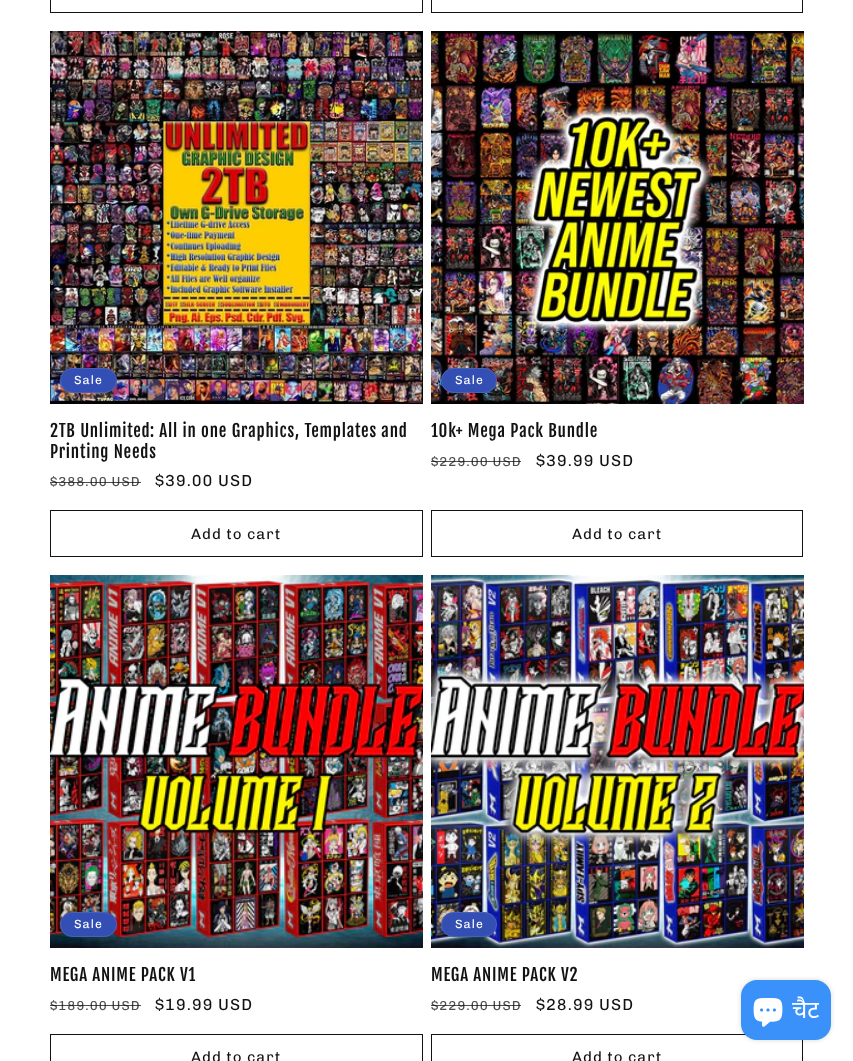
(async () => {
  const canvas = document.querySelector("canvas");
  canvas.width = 853;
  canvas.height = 1061;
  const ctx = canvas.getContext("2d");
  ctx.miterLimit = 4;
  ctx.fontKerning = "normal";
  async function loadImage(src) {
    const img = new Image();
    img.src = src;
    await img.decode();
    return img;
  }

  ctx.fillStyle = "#ffffff";
  ctx.fillRect(0, 0, 853, 1061);
  ctx.strokeStyle = "#121212";
  ctx.strokeRect(50.5, -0.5, 372, 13);
  ctx.strokeRect(431.5, -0.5, 371, 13);
  ctx.drawImage(await loadImage("img/1.png"), 50, 31, 373, 373);
  ctx.fillStyle = "#334fb4";
  ctx.beginPath();
  ctx.roundRect(60, 368, 57, 25, 12.5);
  ctx.fill();
  ctx.beginPath();
  ctx.roundRect(60.5, 368.5, 56, 24, 12);
  ctx.strokeStyle = "rgba(255, 255, 255, 0.1)";
  ctx.stroke();
  ctx.strokeStyle = "#121212";
  ctx.strokeRect(50.5, 510.5, 372, 46);
  ctx.drawImage(await loadImage("img/2.png"), 431, 31, 373, 373);
  ctx.beginPath();
  ctx.roundRect(441, 368, 56, 25, 12.5);
  ctx.fill();
  ctx.beginPath();
  ctx.roundRect(441.5, 368.5, 55, 24, 12);
  ctx.strokeStyle = "rgba(255, 255, 255, 0.1)";
  ctx.stroke();
  ctx.strokeStyle = "#121212";
  ctx.strokeRect(431.5, 510.5, 371, 46);
  ctx.drawImage(await loadImage("img/3.png"), 50, 575, 373, 373);
  ctx.beginPath();
  ctx.roundRect(60, 912, 57, 25, 12.5);
  ctx.fill();
  ctx.beginPath();
  ctx.roundRect(60.5, 912.5, 56, 24, 12);
  ctx.strokeStyle = "rgba(255, 255, 255, 0.1)";
  ctx.stroke();
  ctx.strokeStyle = "#121212";
  ctx.strokeRect(50.5, 1034.5, 372, 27);
  ctx.drawImage(await loadImage("img/4.png"), 431, 575, 373, 373);
  ctx.beginPath();
  ctx.roundRect(441, 912, 56, 25, 12.5);
  ctx.fill();
  ctx.beginPath();
  ctx.roundRect(441.5, 912.5, 55, 24, 12);
  ctx.strokeStyle = "rgba(255, 255, 255, 0.1)";
  ctx.stroke();
  ctx.strokeStyle = "#121212";
  ctx.strokeRect(431.5, 1034.5, 371, 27);
  ctx.fillStyle = "rgba(0, 0, 0, 0.15)";
  ctx.filter = "blur(2.5px)";
  ctx.beginPath();
  ctx.roundRect(741, 980, 90, 60, 16);
  ctx.fill();
  ctx.filter = "none";
  ctx.fillStyle = "#3991f9";
  ctx.beginPath();
  ctx.roundRect(741, 980, 90, 60, 16);
  ctx.fill();
  ctx.drawImage(await loadImage("img/5.png"), 753, 998, 30, 29);
  ctx.letterSpacing = "1px";
  ctx.font = "12px Chivo";
  ctx.fillStyle = "#ffffff";
  ctx.fillText("Sale", 74, 384);
  ctx.letterSpacing = "0.8px";
  ctx.font = "16.9px Fjalla One";
  ctx.fillStyle = "#121212";
  ctx.fillText("2TB Unlimited: All in one Graphics, Templates and", 50, 437);
  ctx.fillText("Printing Needs", 50, 458);
  ctx.letterSpacing = "1px";
  ctx.font = "13px Chivo";
  ctx.fillStyle = "#4d4d4d";
  ctx.fillText("$388.00 USD", 50, 486);
  ctx.fillStyle = "rgba(18, 18, 18, 0.75)";
  ctx.fillRect(50, 482, 91, 1);
  ctx.font = "16px Chivo";
  ctx.fillStyle = "#121212";
  ctx.fillText("$39.00 USD", 155, 486);
  ctx.font = "15px Chivo";
  ctx.fillText("Add to cart", 191, 539);
  ctx.font = "12px Chivo";
  ctx.fillStyle = "#ffffff";
  ctx.fillText("Sale", 455, 384);
  ctx.letterSpacing = "0.8px";
  ctx.font = "16.9px Fjalla One";
  ctx.fillStyle = "#121212";
  ctx.fillText("10k+ Mega Pack Bundle", 431, 437);
  ctx.letterSpacing = "1px";
  ctx.font = "13px Chivo";
  ctx.fillStyle = "#4d4d4d";
  ctx.fillText("$229.00 USD", 431, 466);
  ctx.fillStyle = "rgba(18, 18, 18, 0.75)";
  ctx.fillRect(431, 461, 90, 1);
  ctx.font = "16px Chivo";
  ctx.fillStyle = "#121212";
  ctx.fillText("$39.99 USD", 536, 466);
  ctx.font = "15px Chivo";
  ctx.fillText("Add to cart", 572, 539);
  ctx.font = "12px Chivo";
  ctx.fillStyle = "#ffffff";
  ctx.fillText("Sale", 74, 928);
  ctx.letterSpacing = "0.8px";
  ctx.font = "16.9px Fjalla One";
  ctx.fillStyle = "#121212";
  ctx.fillText("MEGA ANIME PACK V1", 50, 981);
  ctx.letterSpacing = "1px";
  ctx.font = "13px Chivo";
  ctx.fillStyle = "#4d4d4d";
  ctx.fillText("$189.00 USD", 50, 1010);
  ctx.fillStyle = "rgba(18, 18, 18, 0.75)";
  ctx.fillRect(50, 1005, 91, 1);
  ctx.font = "16px Chivo";
  ctx.fillStyle = "#121212";
  ctx.fillText("$19.99 USD", 155, 1010);
  ctx.font = "15px Chivo";
  ctx.fillText("Add to cart", 191, 1062);
  ctx.font = "12px Chivo";
  ctx.fillStyle = "#ffffff";
  ctx.fillText("Sale", 455, 928);
  ctx.letterSpacing = "0.8px";
  ctx.font = "16.9px Fjalla One";
  ctx.fillStyle = "#121212";
  ctx.fillText("MEGA ANIME PACK V2", 431, 981);
  ctx.letterSpacing = "1px";
  ctx.font = "13px Chivo";
  ctx.fillStyle = "#4d4d4d";
  ctx.fillText("$229.00 USD", 431, 1010);
  ctx.fillStyle = "rgba(18, 18, 18, 0.75)";
  ctx.fillRect(431, 1005, 90, 1);
  ctx.font = "16px Chivo";
  ctx.fillStyle = "#121212";
  ctx.fillText("$28.99 USD", 536, 1010);
  ctx.font = "15px Chivo";
  ctx.fillText("Add to cart", 572, 1062);
  ctx.save();
  ctx.beginPath();
  ctx.rect(792, 995, 27, 30);
  ctx.clip();
  ctx.letterSpacing = "0px";
  ctx.font = "24px Noto Sans";
  ctx.fillStyle = "#ffffff";
  ctx.fillText("चैट", 792, 1018);
  ctx.restore();
})();
